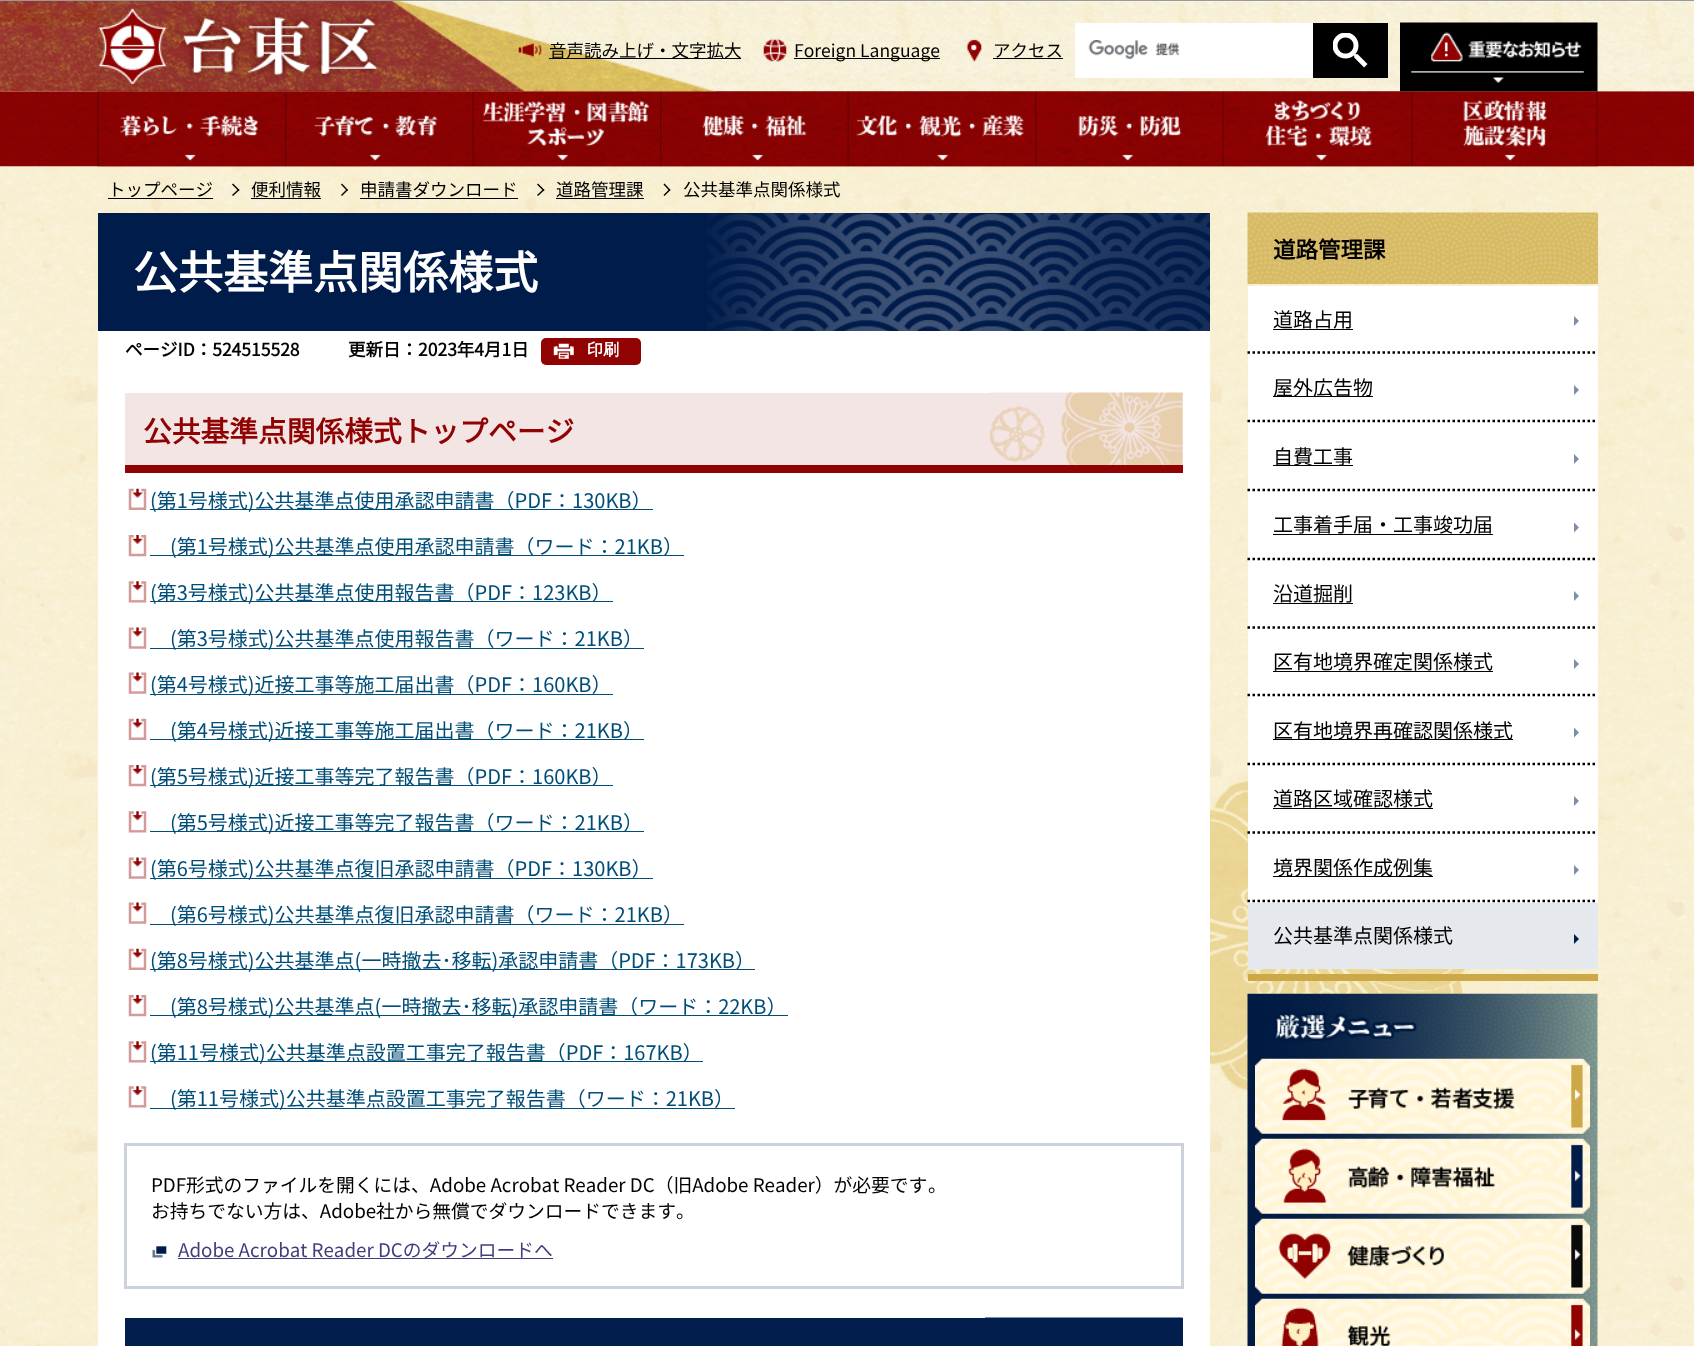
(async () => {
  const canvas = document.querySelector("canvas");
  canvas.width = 1694;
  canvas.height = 1346;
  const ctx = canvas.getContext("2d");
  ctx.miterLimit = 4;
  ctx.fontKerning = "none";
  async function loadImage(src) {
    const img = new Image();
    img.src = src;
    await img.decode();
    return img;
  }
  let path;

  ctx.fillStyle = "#ffffff";
  ctx.fillRect(0, 0, 1694, 1346);
  ctx.drawImage(await loadImage("img/1.png"), 0, 91, 1694, 1255);
  ctx.fillStyle = "#999999";
  ctx.fillRect(0, 0, 1694, 1);
  ctx.drawImage(await loadImage("img/12.png"), 0, 91, 1694, 76);
  ctx.drawImage(await loadImage("img/13.png"), 97, 91, 188, 76);
  ctx.drawImage(await loadImage("img/14.png"), 285, 91, 188, 76);
  ctx.drawImage(await loadImage("img/15.png"), 472, 91, 188, 76);
  ctx.drawImage(await loadImage("img/16.png"), 660, 91, 188, 76);
  ctx.drawImage(await loadImage("img/17.png"), 847, 91, 188, 76);
  ctx.drawImage(await loadImage("img/18.png"), 1035, 91, 188, 76);
  ctx.drawImage(await loadImage("img/19.png"), 1222, 91, 190, 76);
  ctx.drawImage(await loadImage("img/20.png"), 1411, 91, 187, 76);
  ctx.drawImage(await loadImage("img/2.png"), 0, 1, 1694, 91);
  ctx.drawImage(await loadImage("img/3.png"), 0, 1, 339, 91);
  ctx.drawImage(await loadImage("img/4.png"), 97, 1, 620, 91);
  ctx.drawImage(await loadImage("img/5.png"), 98, 8, 282, 76);
  ctx.drawImage(await loadImage("img/6.png"), 518, 43, 24, 14);
  ctx.fillStyle = "#000000";
  ctx.fillRect(549, 58, 192, 1);
  ctx.drawImage(await loadImage("img/7.png"), 763, 38, 24, 24);
  ctx.fillRect(794, 58, 146, 1);
  ctx.drawImage(await loadImage("img/8.png"), 966, 39, 16, 23);
  ctx.fillRect(993, 58, 70, 1);
  ctx.fillStyle = "#ffffff";
  ctx.fillRect(1075, 23, 238, 55);
  ctx.drawImage(await loadImage("img/9.png"), 1088, 40, 92, 19);
  ctx.fillStyle = "#000000";
  ctx.fillRect(1313, 23, 75, 55);
  ctx.drawImage(await loadImage("img/10.png"), 1333, 33, 35, 35);
  ctx.drawImage(await loadImage("img/11.png"), 1400, 22, 198, 70);
  ctx.fillRect(108, 198, 105, 1);
  path = new Path2D("M233 183.5L239.5 190L238.5 191L232 184.5Z");
  ctx.fill(path);
  path = new Path2D("M238.5 189L239.5 190L233 196L232 195Z");
  ctx.fill(path);
  ctx.fillRect(251, 198, 70, 1);
  path = new Path2D("M342 183.5L348 190L347 191L341 184.5Z");
  ctx.fill(path);
  path = new Path2D("M347 189L348 190L342 196L341 195Z");
  ctx.fill(path);
  ctx.fillRect(360, 198, 158, 1);
  path = new Path2D("M538 183.5L544.5 190L543.5 191L537 184.5Z");
  ctx.fill(path);
  path = new Path2D("M543.5 189L544.5 190L538 196L537 195Z");
  ctx.fill(path);
  ctx.fillRect(556, 198, 88, 1);
  path = new Path2D("M664.5 183.5L670.5 190L669.5 191L663.5 184.5Z");
  ctx.fill(path);
  path = new Path2D("M669.5 189L670.5 190L664.5 196L663.5 195Z");
  ctx.fill(path);
  ctx.fillStyle = "#ffffff";
  ctx.fillRect(98, 331, 1112, 1015);
  ctx.fillStyle = "#001c4b";
  ctx.fillRect(98, 213, 1112, 118);
  ctx.drawImage(await loadImage("img/21.png"), 707, 212, 503, 119);
  ctx.fillStyle = "#910202";
  ctx.beginPath();
  ctx.roundRect(541, 338, 100, 27, 5);
  ctx.fill();
  ctx.drawImage(await loadImage("img/22.png"), 553, 342, 21, 18);
  ctx.fillStyle = "#f4e5e5";
  ctx.fillRect(125, 393, 1058, 72);
  ctx.drawImage(await loadImage("img/23.png"), 990, 392, 193, 73);
  ctx.fillStyle = "#910202";
  ctx.fillRect(125, 465, 1058, 8);
  ctx.drawImage(await loadImage("img/24.png"), 128, 488, 19, 22);
  ctx.fillStyle = "#004d77";
  ctx.fillRect(150, 509, 503, 1);
  ctx.drawImage(await loadImage("img/25.png"), 128, 535, 19, 22);
  ctx.fillRect(150, 555, 534, 1);
  ctx.drawImage(await loadImage("img/26.png"), 128, 581, 19, 22);
  ctx.fillRect(150, 601, 463, 1);
  ctx.drawImage(await loadImage("img/27.png"), 128, 627, 19, 22);
  ctx.fillRect(150, 648, 494, 1);
  ctx.drawImage(await loadImage("img/27.png"), 128, 672, 19, 22);
  ctx.fillRect(150, 694, 463, 1);
  ctx.drawImage(await loadImage("img/24.png"), 128, 718, 19, 22);
  ctx.fillRect(150, 739, 494, 1);
  ctx.drawImage(await loadImage("img/25.png"), 128, 765, 19, 22);
  ctx.fillRect(150, 785, 463, 1);
  ctx.drawImage(await loadImage("img/26.png"), 128, 811, 19, 22);
  ctx.fillRect(150, 831, 494, 1);
  ctx.drawImage(await loadImage("img/27.png"), 128, 857, 19, 22);
  ctx.fillRect(150, 878, 503, 1);
  ctx.drawImage(await loadImage("img/27.png"), 128, 902, 19, 22);
  ctx.fillRect(150, 924, 534, 1);
  ctx.drawImage(await loadImage("img/24.png"), 128, 948, 19, 22);
  ctx.fillRect(150, 969, 605, 1);
  ctx.drawImage(await loadImage("img/25.png"), 128, 995, 19, 22);
  ctx.fillRect(150, 1015, 638, 1);
  ctx.drawImage(await loadImage("img/26.png"), 128, 1041, 19, 22);
  ctx.fillRect(150, 1061, 553, 1);
  ctx.drawImage(await loadImage("img/26.png"), 128, 1086, 19, 22);
  ctx.fillRect(150, 1108, 585, 1);
  ctx.strokeStyle = "#ccd2db";
  ctx.lineWidth = 3;
  ctx.strokeRect(125.5, 1144.5, 1057, 143);
  ctx.drawImage(await loadImage("img/28.png"), 152, 1246, 15, 12);
  ctx.fillStyle = "#413e7f";
  ctx.fillRect(178, 1258, 375, 1);
  ctx.fillStyle = "#021e4c";
  ctx.fillRect(125, 1318, 1058, 28);
  ctx.drawImage(await loadImage("img/29.png"), 985, 1317, 198, 1);
  ctx.fillStyle = "#cca946";
  ctx.fillRect(1248, 974, 350, 7);
  ctx.fillStyle = "#d8ba5e";
  ctx.fillRect(1248, 213, 350, 71);
  ctx.drawImage(await loadImage("img/30.png"), 1247, 212, 351, 72);
  ctx.fillStyle = "#ffffff";
  ctx.fillRect(1248, 286, 350, 617);
  path = new Path2D("M1247.5 352.5H1597.5");
  ctx.strokeStyle = "#000000";
  ctx.lineWidth = 2.5;
  ctx.setLineDash([2.5, 2.5]);
  ctx.stroke(path);
  ctx.fillStyle = "#000000";
  ctx.fillRect(1273, 329, 80, 1);
  ctx.fillStyle = "#7f8da5";
  path = new Path2D("M1574 326V316L1579 321Z");
  ctx.fill(path);
  path = new Path2D("M1247.5 421H1597.5");
  ctx.stroke(path);
  ctx.fillStyle = "#000000";
  ctx.fillRect(1273, 396, 100, 1);
  ctx.fillStyle = "#7f8da5";
  path = new Path2D("M1574 395V385L1579 390Z");
  ctx.fill(path);
  path = new Path2D("M1247.5 490H1597.5");
  ctx.stroke(path);
  ctx.fillStyle = "#000000";
  ctx.fillRect(1273, 465, 80, 1);
  ctx.fillStyle = "#7f8da5";
  path = new Path2D("M1574 464V454L1579 459Z");
  ctx.fill(path);
  path = new Path2D("M1247.5 559H1597.5");
  ctx.stroke(path);
  ctx.fillStyle = "#000000";
  ctx.fillRect(1273, 534, 220, 1);
  ctx.fillStyle = "#7f8da5";
  path = new Path2D("M1574 532.5V522.5L1579 527.5Z");
  ctx.fill(path);
  path = new Path2D("M1247.5 627.5H1597.5");
  ctx.stroke(path);
  ctx.fillStyle = "#000000";
  ctx.fillRect(1273, 603, 80, 1);
  ctx.fillStyle = "#7f8da5";
  path = new Path2D("M1574 601V591L1579 596Z");
  ctx.fill(path);
  path = new Path2D("M1247.5 695H1597.5");
  ctx.stroke(path);
  ctx.fillStyle = "#000000";
  ctx.fillRect(1273, 671, 220, 1);
  ctx.fillStyle = "#7f8da5";
  path = new Path2D("M1574 669V659L1579 664Z");
  ctx.fill(path);
  path = new Path2D("M1247.5 764H1597.5");
  ctx.stroke(path);
  ctx.fillStyle = "#000000";
  ctx.fillRect(1273, 739, 240, 1);
  ctx.fillStyle = "#7f8da5";
  path = new Path2D("M1574 737.5V727.5L1579 732.5Z");
  ctx.fill(path);
  path = new Path2D("M1247.5 832.5H1597.5");
  ctx.stroke(path);
  ctx.fillStyle = "#000000";
  ctx.fillRect(1273, 808, 160, 1);
  ctx.fillStyle = "#7f8da5";
  path = new Path2D("M1574 806V796L1579 801Z");
  ctx.fill(path);
  path = new Path2D("M1247.5 901H1597.5");
  ctx.stroke(path);
  ctx.fillStyle = "#000000";
  ctx.fillRect(1273, 876, 160, 1);
  ctx.fillStyle = "#7f8da5";
  path = new Path2D("M1574 875V865L1579 870Z");
  ctx.fill(path);
  ctx.fillStyle = "#e5e8ed";
  ctx.fillRect(1248, 903, 350, 66);
  ctx.fillStyle = "#001c4b";
  path = new Path2D("M1574 944V934L1579 939Z");
  ctx.fill(path);
  ctx.drawImage(await loadImage("img/31.png"), 1247, 993, 351, 353);
  ctx.drawImage(await loadImage("img/32.png"), 1273, 1012, 144, 29);
  ctx.drawImage(await loadImage("img/33.png"), 1255, 1058, 335, 76);
  ctx.drawImage(await loadImage("img/34.png"), 1255, 1138, 335, 76);
  ctx.drawImage(await loadImage("img/35.png"), 1255, 1218, 335, 76);
  ctx.drawImage(await loadImage("img/36.png"), 1255, 1298, 335, 48);
  ctx.font = "100 17.5px Noto Sans JP";
  ctx.fillStyle = "#000000";
  for (const [text, x, y] of [
    ["音声読み上げ・文字拡大", 549, 57],
    ["Foreign Language", 794, 57],
    ["アクセス", 993, 57],
    ["トップページ", 108, 196],
    ["便利情報", 251, 196],
    ["申請書ダウンロード", 360, 196],
    ["道路管理課", 556, 196],
    ["公共基準点関係様式", 683, 196],
  ]) {
    ctx.fillText(text, x, y);
  }
  ctx.font = "bold 45px Noto Sans JP";
  ctx.fillStyle = "#ffffff";
  ctx.fillText("公共基準点関係様式", 133, 289);
  ctx.font = "bold 17.5px Noto Sans JP";
  ctx.fillStyle = "#000000";
  ctx.fillText("ページID：524515528", 125, 356);
  ctx.fillText("更新日：2023年4月1日", 348, 356);
  ctx.font = "bold 16px WenQuanYi Zen Hei";
  ctx.fillStyle = "#ffffff";
  ctx.fillText("印刷", 587, 355);
  ctx.font = "bold 28.75px Noto Sans JP";
  ctx.fillStyle = "#910202";
  ctx.fillText("公共基準点関係様式トップページ", 143, 442);
  ctx.font = "100 20px Noto Sans JP";
  ctx.fillStyle = "#004d77";
  for (const [text, x, y] of [
    ["(第1号様式)公共基準点使用承認申請書（PDF：130KB）", 150, 508],
    ["(第1号様式)公共基準点使用承認申請書（ワード：21KB）", 170, 554],
    ["(第3号様式)公共基準点使用報告書（PDF：123KB）", 150, 600],
    ["(第3号様式)公共基準点使用報告書（ワード：21KB）", 170, 646],
    ["(第4号様式)近接工事等施工届出書（PDF：160KB）", 150, 692],
    ["(第4号様式)近接工事等施工届出書（ワード：21KB）", 170, 738],
    ["(第5号様式)近接工事等完了報告書（PDF：160KB）", 150, 784],
    ["(第5号様式)近接工事等完了報告書（ワード：21KB）", 170, 830],
    ["(第6号様式)公共基準点復旧承認申請書（PDF：130KB）", 150, 876],
    ["(第6号様式)公共基準点復旧承認申請書（ワード：21KB）", 170, 922],
    ["(第8号様式)公共基準点(一時撤去･移転)承認申請書（PDF：173KB）", 150, 968],
    ["(第8号様式)公共基準点(一時撤去･移転)承認申請書（ワード：22KB）", 170, 1014],
    ["(第11号様式)公共基準点設置工事完了報告書（PDF：167KB）", 150, 1060],
    ["(第11号様式)公共基準点設置工事完了報告書（ワード：21KB）", 170, 1106],
  ]) {
    ctx.fillText(text, x, y);
  }
  ctx.font = "100 18.75px Noto Sans JP";
  ctx.fillStyle = "#000000";
  ctx.fillText("PDF形式のファイルを開くには、Adobe Acrobat Reader DC（旧Adobe Reader）が必要です", 151, 1192);
  ctx.fillText("。", 928, 1192);
  ctx.fillText("お持ちでない方は、Adobe社から無償でダウンロードできます。", 151, 1218);
  ctx.fillStyle = "#413e7f";
  ctx.fillText("Adobe Acrobat Reader DCのダウンロードへ", 178, 1257);
  ctx.font = "bold 22.5px Noto Sans JP";
  ctx.fillStyle = "#000000";
  ctx.fillText("道路管理課", 1273, 258);
  ctx.font = "100 20px Noto Sans JP";
  for (const [text, x, y] of [
    ["道路占用", 1273, 327],
    ["屋外広告物", 1273, 395],
    ["自費工事", 1273, 464],
    ["工事着手届・工事竣功届", 1273, 532],
    ["沿道掘削", 1273, 601],
    ["区有地境界確定関係様式", 1273, 669],
    ["区有地境界再確認関係様式", 1273, 738],
    ["道路区域確認様式", 1273, 806],
    ["境界関係作成例集", 1273, 875],
    ["公共基準点関係様式", 1273, 943],
  ]) {
    ctx.fillText(text, x, y);
  }
})();
